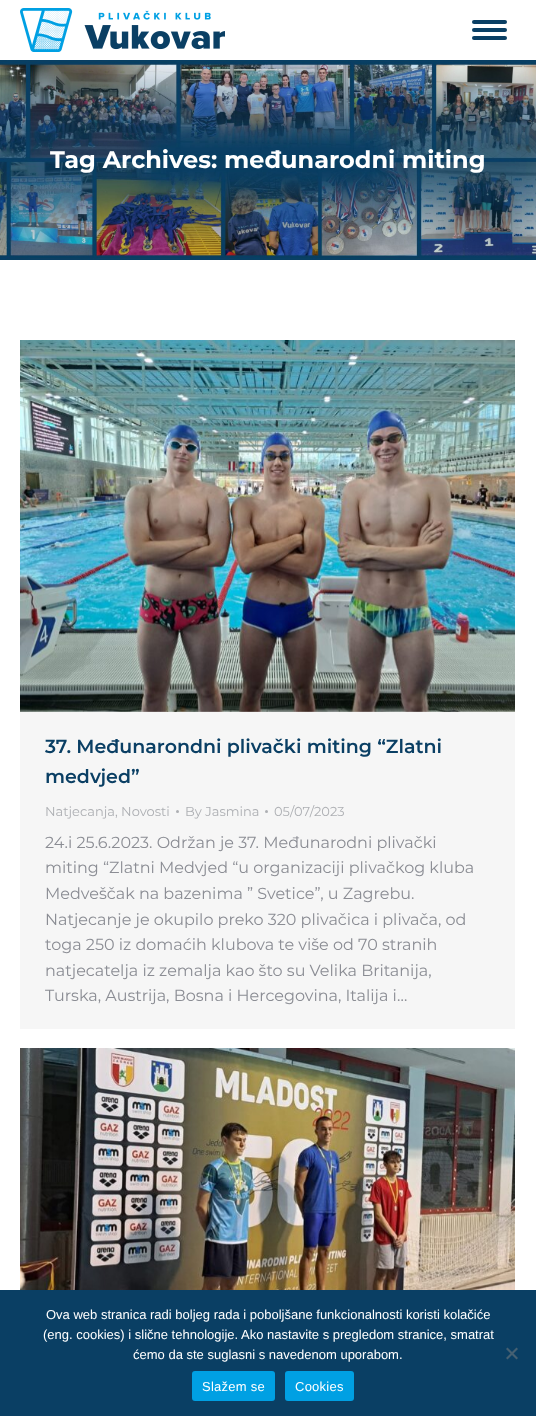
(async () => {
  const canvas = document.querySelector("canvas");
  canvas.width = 536;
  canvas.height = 1416;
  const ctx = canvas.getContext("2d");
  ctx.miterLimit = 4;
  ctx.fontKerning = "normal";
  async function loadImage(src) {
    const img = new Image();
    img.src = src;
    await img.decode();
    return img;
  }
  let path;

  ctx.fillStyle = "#ffffff";
  ctx.fillRect(0, 0, 536, 1416);
  ctx.drawImage(await loadImage("img/1.png"), 20, 8, 205, 44);
  ctx.fillStyle = "#0a3f64";
  ctx.beginPath();
  ctx.roundRect(472, 20, 35, 4, 2);
  ctx.fill();
  ctx.beginPath();
  ctx.roundRect(472, 28, 35, 4, 2);
  ctx.fill();
  ctx.beginPath();
  ctx.roundRect(472, 36, 35, 4, 2);
  ctx.fill();
  ctx.drawImage(await loadImage("img/2.png"), 0, 60, 536, 200);
  ctx.fillStyle = "#f6f6f6";
  ctx.fillRect(20, 711, 495, 318);
  ctx.drawImage(await loadImage("img/3.png"), 20, 340, 495, 372);
  ctx.fillStyle = "#adafb3";
  ctx.beginPath();
  ctx.arc(177.5, 811.5, 1.5, 0, Math.PI * 2);
  ctx.fill();
  ctx.beginPath();
  ctx.arc(266.5, 811.5, 1.5, 0, Math.PI * 2);
  ctx.fill();
  ctx.drawImage(await loadImage("img/4.png"), 20, 1048, 495, 242);
  ctx.fillStyle = "#0a3f64";
  ctx.fillRect(0, 1290, 536, 126);
  ctx.fillStyle = "#456072";
  path = new Path2D("M516.5 1347.5L518 1349L507.5 1359.5L506 1358Z");
  ctx.fill(path);
  path = new Path2D("M506 1349L507.5 1347.5L518 1358L516.5 1359.5Z");
  ctx.fill(path);
  ctx.fillStyle = "#00a0e3";
  ctx.beginPath();
  ctx.roundRect(192, 1371, 83, 30, 3);
  ctx.fill();
  ctx.beginPath();
  ctx.roundRect(285, 1371, 69, 30, 3);
  ctx.fill();
  ctx.font = "bold 24px Montserrat";
  ctx.fillStyle = "#ffffff";
  ctx.fillText("Tag Archives: međunarodni miting", 50, 168);
  ctx.font = "600 19px Montserrat";
  ctx.fillStyle = "#0a3f64";
  ctx.fillText("37. Međunarondni plivački miting “Zlatni", 45, 753);
  ctx.fillText("medvjed”", 45, 783);
  ctx.font = "13px Montserrat";
  ctx.fillStyle = "#adafb3";
  for (const [text, x, y] of [
    ["Natjecanja, Novosti", 45, 816],
    ["By Jasmina", 185, 816],
    ["05/07/2023", 274, 816],
  ]) {
    ctx.fillText(text, x, y);
  }
  ctx.font = "16px Montserrat";
  ctx.fillStyle = "#8b8d94";
  for (const [text, x, y] of [
    ["24.i 25.6.2023. Održan je 37. Međunarodni plivački", 45, 848],
    ["miting “Zlatni Medvjed “u organizaciji plivačkog kluba", 45, 873],
    ["Medveščak na bazenima ” Svetice”, u Zagrebu.", 45, 899],
    ["Natjecanje je okupilo preko 320 plivačica i plivača, od", 45, 925],
    ["toga 250 iz domaćih klubova te više od 70 stranih", 45, 950],
    ["natjecatelja iz zemalja kao što su Velika Britanija,", 45, 976],
    ["Turska, Austrija, Bosna i Hercegovina, Italija i…", 45, 1001],
  ]) {
    ctx.fillText(text, x, y);
  }
  ctx.font = "13px Liberation Sans";
  ctx.fillStyle = "#ffffff";
  for (const [text, x, y] of [
    ["Ova web stranica radi boljeg rada i poboljšane funkcionalnosti koristi kolačiće", 46, 1319],
    ["(eng. cookies) i slične tehnologije. Ako nastavite s pregledom stranice, smatrat", 43, 1339],
    ["ćemo da ste suglasni s navedenom uporabom.", 133, 1359],
  ]) {
    ctx.fillText(text, x, y);
  }
  ctx.letterSpacing = "0.25px";
  ctx.fillText("Slažem se", 202, 1391);
  ctx.fillText("Cookies", 295, 1391);
})();
